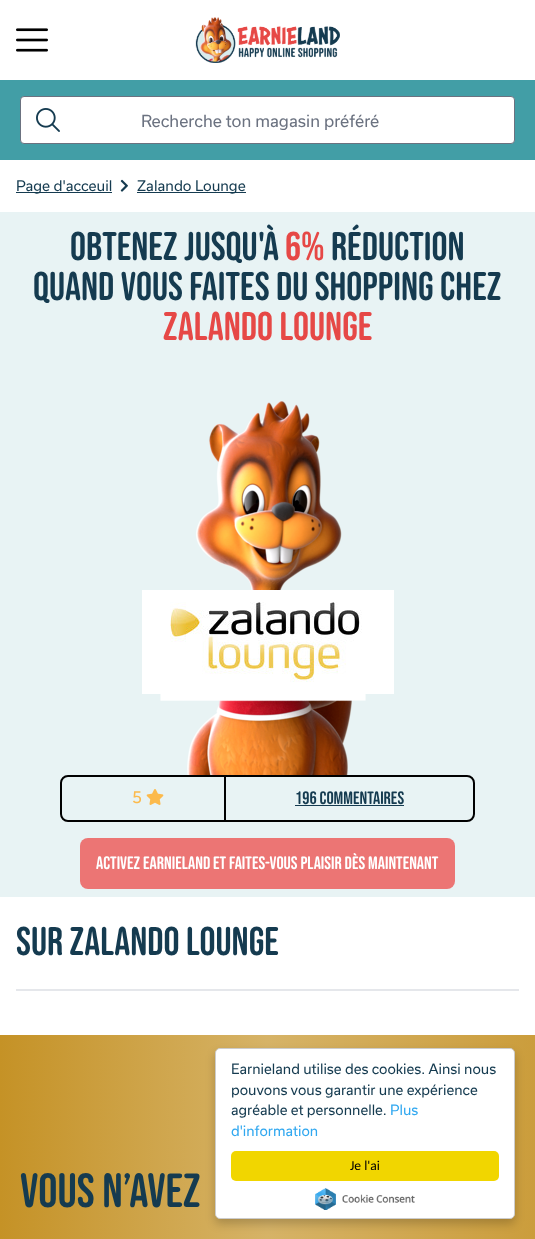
(async () => {
  const canvas = document.querySelector("canvas");
  canvas.width = 535;
  canvas.height = 1239;
  const ctx = canvas.getContext("2d");
  ctx.miterLimit = 4;
  ctx.fontKerning = "normal";
  async function loadImage(src) {
    const img = new Image();
    img.src = src;
    await img.decode();
    return img;
  }
  let gradient;

  ctx.fillStyle = "#ffffff";
  ctx.fillRect(0, 0, 535, 1239);
  ctx.drawImage(await loadImage("img/1.png"), 16, 28, 32, 24);
  ctx.drawImage(await loadImage("img/2.png"), 195, 17, 145, 46);
  ctx.fillStyle = "#429ea6";
  ctx.fillRect(0, 80, 535, 80);
  ctx.fillStyle = "#ffffff";
  ctx.beginPath();
  ctx.roundRect(20.5, 96.5, 494, 47, 3.5);
  ctx.fill();
  ctx.strokeStyle = "#6b7280";
  ctx.stroke();
  ctx.drawImage(await loadImage("img/3.png"), 36, 108, 24, 24);
  ctx.fillStyle = "#153b50";
  ctx.fillRect(16, 192, 96, 1);
  ctx.drawImage(await loadImage("img/4.png"), 120, 179, 8, 13);
  ctx.fillRect(137, 192, 109, 1);
  ctx.fillStyle = "#e8f3f4";
  ctx.fillRect(0, 212, 535, 685);
  ctx.drawImage(await loadImage("img/5.png"), 160, 401, 206, 374);
  ctx.fillStyle = "#ffffff";
  ctx.fillRect(142, 590, 252, 104);
  ctx.drawImage(await loadImage("img/6.png"), 170, 602, 192, 80);
  ctx.beginPath();
  ctx.roundRect(61, 776, 413, 45, 7);
  ctx.strokeStyle = "#000000";
  ctx.lineWidth = 2;
  ctx.stroke();
  ctx.fillStyle = "#000000";
  ctx.fillRect(224, 777, 2, 43);
  ctx.drawImage(await loadImage("img/7.png"), 146, 789, 18, 16);
  ctx.fillStyle = "#153b50";
  ctx.fillRect(295, 805, 109, 1);
  ctx.fillStyle = "#ec7574";
  ctx.beginPath();
  ctx.roundRect(80, 838, 375, 51, 8);
  ctx.fill();
  ctx.fillStyle = "#e5e7eb";
  ctx.fillRect(16, 989, 503, 2);
  gradient = ctx.createLinearGradient(0, 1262, 535, 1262);
  gradient.addColorStop(0, "#c59226");
  gradient.addColorStop(0.5, "#d6b367");
  gradient.addColorStop(1, "#cb9d3c");
  ctx.fillStyle = gradient;
  ctx.fillRect(0, 1035, 535, 204);
  ctx.fillStyle = "rgba(0, 0, 0, 0.2)";
  ctx.filter = "blur(5px)";
  ctx.beginPath();
  ctx.roundRect(215, 1053, 300, 171, 5);
  ctx.fill();
  ctx.filter = "none";
  ctx.fillStyle = "#ffffff";
  ctx.beginPath();
  ctx.roundRect(215.5, 1048.5, 299, 170, 4.5);
  ctx.fill();
  ctx.strokeStyle = "#cccccc";
  ctx.lineWidth = 1;
  ctx.stroke();
  ctx.fillStyle = "#f1d600";
  ctx.beginPath();
  ctx.roundRect(231, 1151, 268, 30, 5);
  ctx.fill();
  ctx.drawImage(await loadImage("img/8.png"), 315, 1188, 100, 22);
  ctx.font = "16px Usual";
  ctx.fillStyle = "#6b7280";
  ctx.fillText("Recherche ton magasin préféré", 141, 127);
  ctx.font = "14px Usual";
  ctx.fillStyle = "#153b50";
  ctx.fillText("Page d'acceuil", 16, 191);
  ctx.fillText("Zalando Lounge", 137, 191);
  ctx.font = "40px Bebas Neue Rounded";
  ctx.fillText("Obtenez jusqu'à", 70, 260);
  ctx.fillStyle = "#e64846";
  ctx.fillText("6%", 285, 260);
  ctx.fillStyle = "#153b50";
  ctx.fillText("réduction", 331, 260);
  ctx.fillText("Quand vous faites du shopping chez", 33, 300);
  ctx.fillStyle = "#e64846";
  ctx.fillText("Zalando Lounge", 163, 340);
  ctx.font = "16px Usual";
  ctx.fillStyle = "#fcba4c";
  ctx.fillText("5", 132, 803);
  ctx.font = "18px Bebas Neue Rounded";
  ctx.fillStyle = "#153b50";
  ctx.fillText("196 Commentaires", 295, 804);
  ctx.fillStyle = "#ffffff";
  ctx.fillText("activez Earnieland et faites-vous plaisir dès maintenant", 96, 869);
  ctx.font = "40px Bebas Neue Rounded";
  ctx.fillStyle = "#153b50";
  ctx.fillText("Sur Zalando Lounge", 16, 955);
  ctx.font = "48px Bebas Neue Rounded";
  ctx.fillText("Vous n’avez", 20, 1207);
  ctx.font = "13.6px Usual";
  for (const [text, x, y] of [
    ["Earnieland utilise des cookies. Ainsi nous", 231, 1074],
    ["pouvons vous garantir une expérience", 231, 1095],
    ["agréable et personnelle.", 231, 1115],
  ]) {
    ctx.fillText(text, x, y);
  }
  ctx.fillStyle = "#31a8f0";
  ctx.fillText("Plus", 390, 1115);
  ctx.fillText("d'information", 231, 1136);
  ctx.font = "13.6px Carlito";
  ctx.fillStyle = "#000000";
  ctx.fillText("Je l'ai", 350, 1170);
})();
